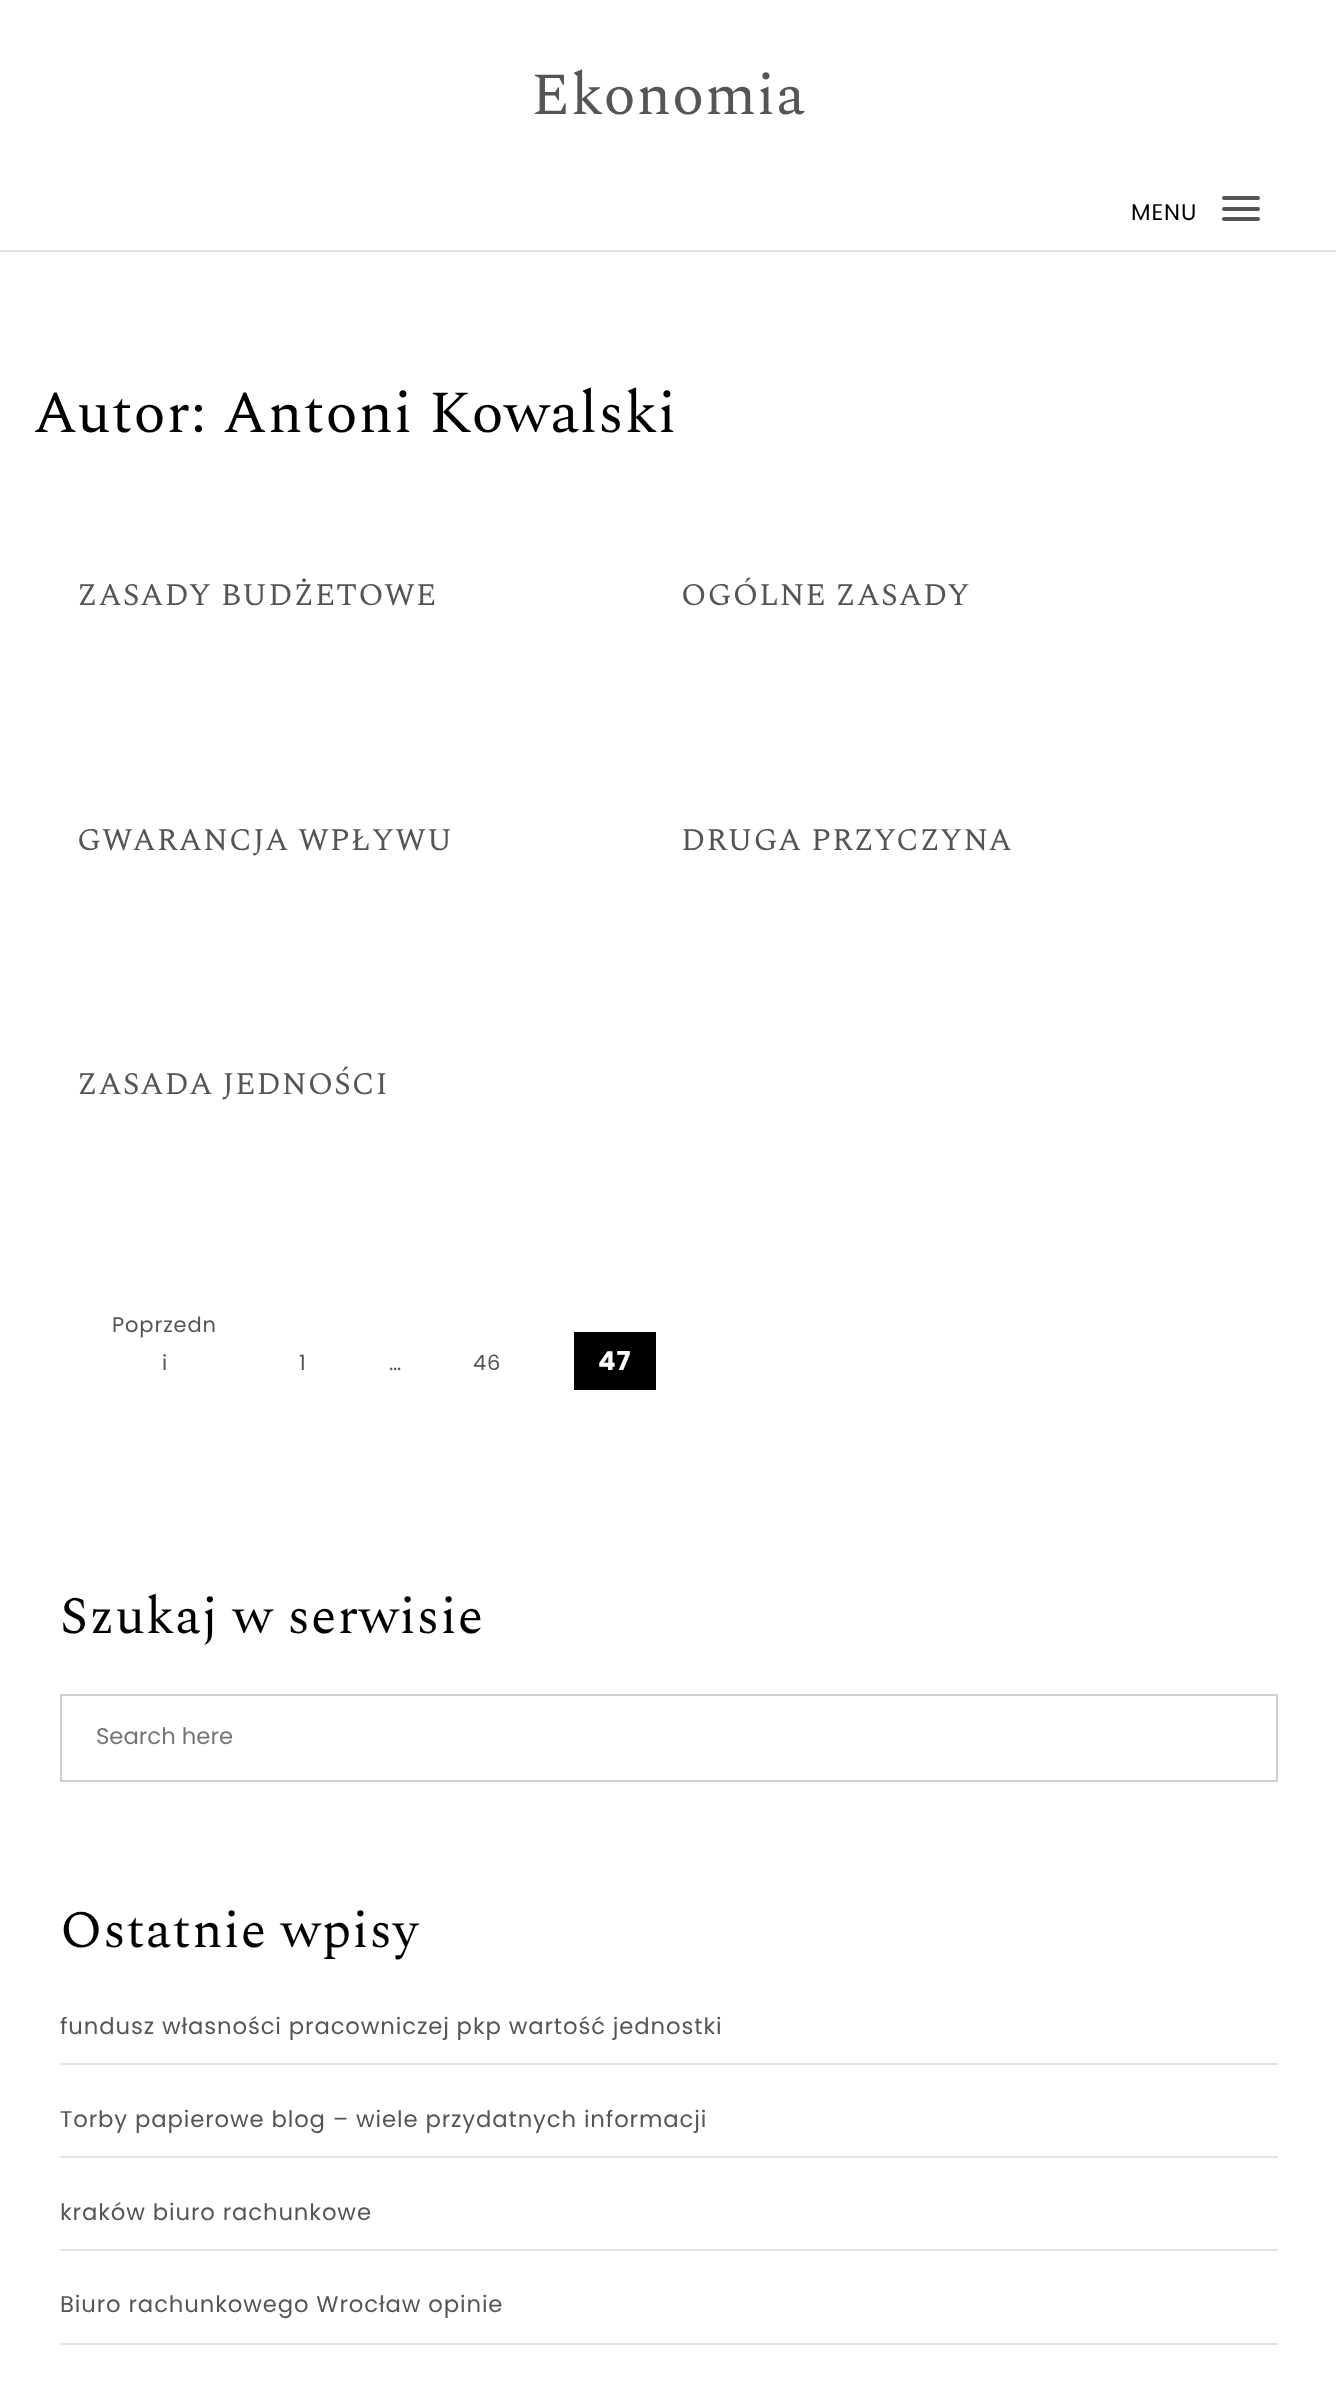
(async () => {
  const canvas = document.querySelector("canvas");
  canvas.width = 1336;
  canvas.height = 2386;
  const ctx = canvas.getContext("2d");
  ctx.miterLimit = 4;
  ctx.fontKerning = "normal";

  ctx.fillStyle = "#ffffff";
  ctx.fillRect(0, 0, 1336, 2386);
  ctx.fillStyle = "#e0e0e0";
  ctx.fillRect(0, 250, 1336, 2);
  ctx.fillStyle = "#555555";
  ctx.beginPath();
  ctx.roundRect(1222, 196, 38, 4, 2);
  ctx.fill();
  ctx.beginPath();
  ctx.roundRect(1222, 207, 38, 4, 2);
  ctx.fill();
  ctx.beginPath();
  ctx.roundRect(1222, 217, 38, 4, 2);
  ctx.fill();
  ctx.fillStyle = "#000000";
  ctx.fillRect(574, 1332, 82, 58);
  ctx.strokeStyle = "#d0d0d0";
  ctx.lineWidth = 2;
  ctx.strokeRect(61, 1695, 1216, 86);
  for (const [x, y, w, h, color] of [
    [60, 2063, 1218, 2, "#e4e4e4"],
    [60, 2156, 1218, 2, "#e4e4e4"],
    [60, 2249, 1218, 2, "#e4e4e4"],
    [60, 2343, 1218, 2, "#e4e4e4"],
  ]) {
    ctx.fillStyle = color;
    ctx.fillRect(x, y, w, h);
  }
  ctx.letterSpacing = "0.88px";
  ctx.font = "59.5px Spectral";
  ctx.fillStyle = "#555555";
  ctx.fillText("Ekonomia", 531, 114);
  ctx.font = "22.75px Poppins";
  ctx.fillStyle = "#000000";
  ctx.fillText("MENU", 1131, 220);
  ctx.font = "59.5px Spectral";
  ctx.fillText("Autor: Antoni Kowalski", 33, 432);
  ctx.font = "31.5px Spectral";
  ctx.fillStyle = "#555555";
  for (const [text, x, y] of [
    ["ZASADY BUDŻETOWE", 77, 605],
    ["OGÓLNE ZASADY", 681, 605],
    ["GWARANCJA WPŁYWU", 77, 850],
    ["DRUGA PRZYCZYNA", 681, 850],
    ["ZASADA JEDNOŚCI", 77, 1094],
  ]) {
    ctx.fillText(text, x, y);
  }
  ctx.font = "21px Poppins";
  for (const [text, x, y] of [
    ["Poprzedn", 112, 1332],
    ["i", 162, 1370],
    ["1", 299, 1370],
    ["…", 389, 1370],
    ["46", 473, 1370],
  ]) {
    ctx.fillText(text, x, y);
  }
  ctx.font = "bold 26px Poppins";
  ctx.fillStyle = "#ffffff";
  ctx.fillText("47", 598, 1370);
  ctx.font = "52.5px Spectral";
  ctx.fillStyle = "#000000";
  ctx.fillText("Szukaj w serwisie", 60, 1633);
  ctx.letterSpacing = "0px";
  ctx.font = "22.75px Poppins";
  ctx.fillStyle = "#757575";
  ctx.fillText("Search here", 96, 1744);
  ctx.letterSpacing = "0.88px";
  ctx.font = "52.5px Spectral";
  ctx.fillStyle = "#000000";
  ctx.fillText("Ostatnie wpisy", 60, 1947);
  ctx.font = "22.75px Poppins";
  ctx.fillStyle = "#555555";
  for (const [text, x, y] of [
    ["fundusz własności pracowniczej pkp wartość jednostki", 60, 2034],
    ["Torby papierowe blog – wiele przydatnych informacji", 60, 2127],
    ["kraków biuro rachunkowe", 60, 2220],
    ["Biuro rachunkowego Wrocław opinie", 60, 2312],
  ]) {
    ctx.fillText(text, x, y);
  }
})();
